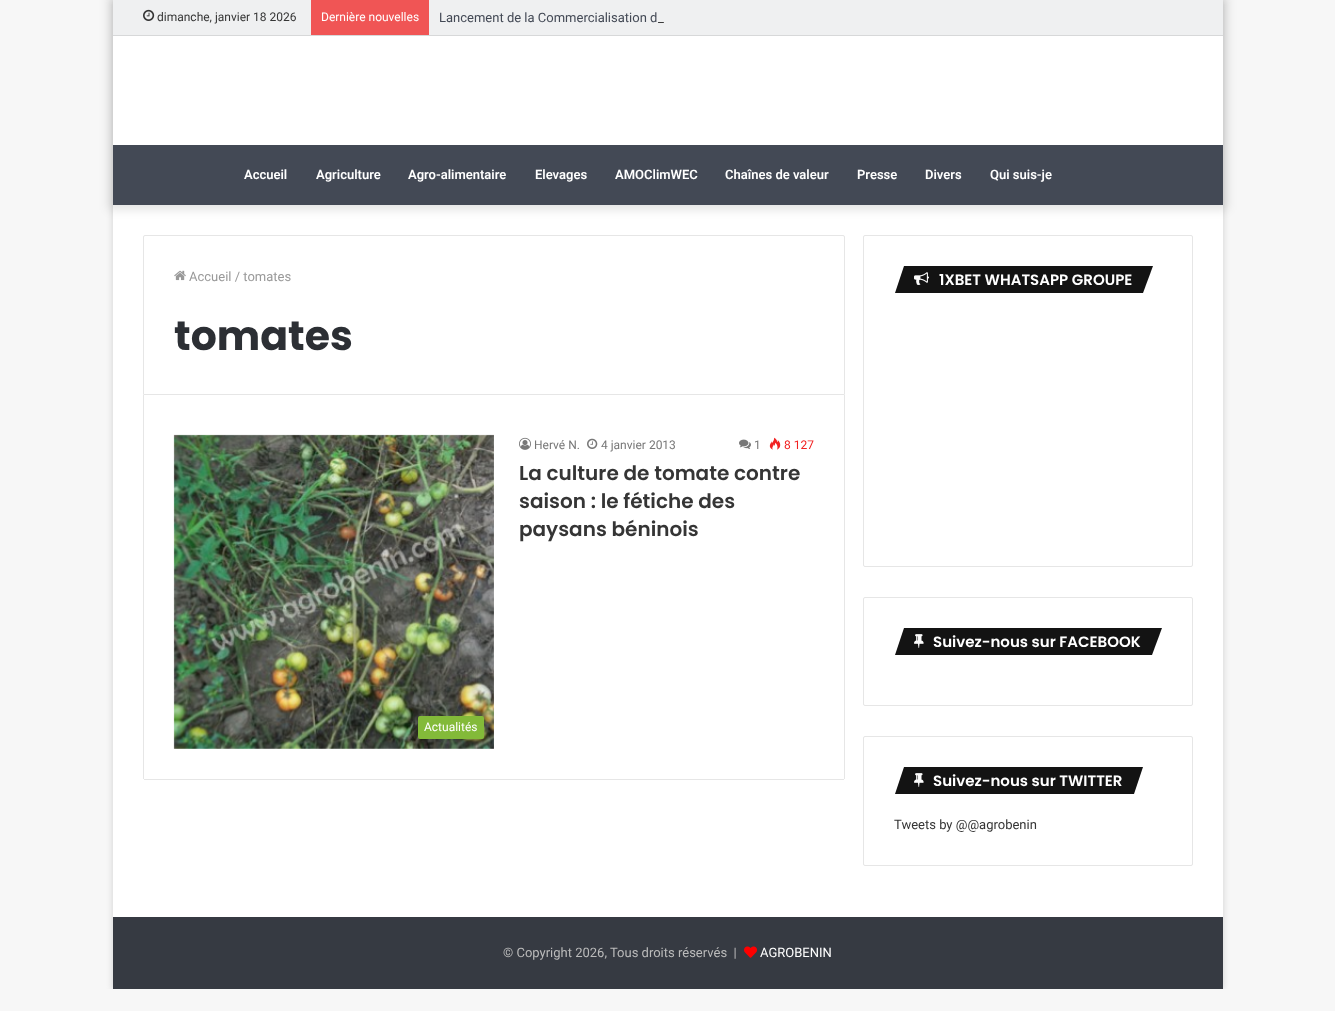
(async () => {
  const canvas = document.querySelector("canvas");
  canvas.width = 1335;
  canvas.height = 1011;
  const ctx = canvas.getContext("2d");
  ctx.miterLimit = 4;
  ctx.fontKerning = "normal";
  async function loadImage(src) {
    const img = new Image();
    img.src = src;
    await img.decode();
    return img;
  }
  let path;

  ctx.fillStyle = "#f7f7f7";
  ctx.fillRect(0, 0, 1335, 1011);
  ctx.save();
  ctx.beginPath();
  ctx.rect(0, 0, 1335, 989);
  ctx.clip();
  ctx.fillStyle = "rgba(171, 171, 171, 0.5)";
  ctx.filter = "blur(3.5px)";
  ctx.beginPath();
  ctx.rect(113, 1, 1110, 989);
  ctx.fill();
  ctx.filter = "none";
  ctx.restore();
  ctx.fillStyle = "#ffffff";
  ctx.fillRect(113, 36, 1110, 881);
  ctx.save();
  path = new Path2D("M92 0H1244V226H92ZM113 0H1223V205H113Z");
  ctx.clip(path, "evenodd");
  ctx.fillStyle = "rgba(0, 0, 0, 0.1)";
  ctx.filter = "blur(5px)";
  ctx.beginPath();
  ctx.rect(108, -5, 1120, 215);
  ctx.fill();
  ctx.filter = "none";
  ctx.restore();
  ctx.fillStyle = "#eff0f1";
  ctx.fillRect(113, 0, 1110, 35);
  ctx.fillStyle = "#d7d8d9";
  ctx.fillRect(113, 35, 1110, 1);
  ctx.drawImage(await loadImage("img/1.png"), 143, 9, 12, 12);
  ctx.fillStyle = "#f05555";
  ctx.fillRect(311, 0, 118, 35);
  ctx.fillStyle = "#434955";
  ctx.fillRect(113, 145, 1110, 60);
  ctx.beginPath();
  ctx.roundRect(143.5, 235.5, 701, 159, [1.5, 1.5, 0, 0]);
  ctx.strokeStyle = "#e6e6e6";
  ctx.stroke();
  ctx.drawImage(await loadImage("img/2.png"), 174, 270, 12, 11);
  for (const [x, y, w, h, color] of [
    [844, 395, 1, 384, "#e6e6e6"],
    [144, 779, 700, 1, "#e6e6e6"],
    [143, 395, 1, 384, "#e6e6e6"],
  ]) {
    ctx.fillStyle = color;
    ctx.fillRect(x, y, w, h);
  }
  ctx.drawImage(await loadImage("img/3.png"), 519, 437, 12, 13);
  ctx.drawImage(await loadImage("img/4.png"), 587, 438, 11, 11);
  ctx.drawImage(await loadImage("img/5.png"), 739, 439, 12, 10);
  ctx.drawImage(await loadImage("img/6.png"), 769, 437, 12, 13);
  ctx.drawImage(await loadImage("img/7.png"), 173, 434, 321, 315);
  ctx.fillStyle = "#83ba39";
  ctx.beginPath();
  ctx.roundRect(418, 716, 66, 23, 2);
  ctx.fill();
  ctx.beginPath();
  ctx.roundRect(863.5, 235.5, 329, 331, 1.5);
  ctx.stroke();
  ctx.fillStyle = "#131313";
  path = new Path2D("M904 266H1153L1143 293H895Z");
  ctx.fill(path);
  ctx.drawImage(await loadImage("img/8.png"), 914, 272, 15, 13);
  ctx.beginPath();
  ctx.roundRect(863.5, 597.5, 329, 108, 1.5);
  ctx.stroke();
  path = new Path2D("M904 628H1162L1152 655H895Z");
  ctx.fill(path);
  ctx.drawImage(await loadImage("img/9.png"), 914, 634, 10, 14);
  ctx.beginPath();
  ctx.roundRect(863.5, 736.5, 329, 129, 1.5);
  ctx.stroke();
  path = new Path2D("M904 767H1143L1134 794H895Z");
  ctx.fill(path);
  ctx.drawImage(await loadImage("img/9.png"), 914, 773, 10, 14);
  ctx.fillStyle = "#363a42";
  ctx.fillRect(113, 917, 1110, 72);
  ctx.drawImage(await loadImage("img/10.png"), 744, 946, 13, 12);
  ctx.font = "12px Roboto";
  ctx.fillStyle = "#353535";
  ctx.fillText("dimanche, janvier 18 2026", 157, 21);
  ctx.fillStyle = "#ffffff";
  ctx.fillText("Dernière nouvelles", 321, 21);
  ctx.font = "13px Roboto";
  ctx.fillStyle = "#434955";
  ctx.fillText("Lancement de la Commercialisation d", 439, 22);
  ctx.fillStyle = "#353535";
  ctx.fillText("_", 658, 22);
  ctx.font = "600 13px Roboto";
  ctx.fillStyle = "#ffffff";
  for (const [text, x, y] of [
    ["Accueil", 244, 179],
    ["Agriculture", 316, 179],
    ["Agro-alimentaire", 408, 179],
    ["Elevages", 535, 179],
    ["AMOClimWEC", 615, 179],
    ["Chaînes de valeur", 725, 179],
    ["Presse", 857, 179],
    ["Divers", 925, 179],
    ["Qui suis-je", 990, 179],
  ]) {
    ctx.fillText(text, x, y);
  }
  ctx.font = "13px Roboto";
  ctx.fillStyle = "#999999";
  ctx.fillText("Accueil / tomates", 189, 281);
  ctx.font = "bold 41px Poppins";
  ctx.fillStyle = "#2c2f34";
  ctx.fillText("tomates", 174, 350);
  ctx.font = "12px Roboto";
  ctx.fillStyle = "#777777";
  for (const [text, x, y] of [
    ["Hervé N.", 534, 449],
    ["4 janvier 2013", 601, 449],
    ["1", 754, 449],
  ]) {
    ctx.fillText(text, x, y);
  }
  ctx.fillStyle = "#f12020";
  ctx.fillText("8 127", 784, 449);
  ctx.font = "600 20px Poppins";
  ctx.fillStyle = "#353535";
  for (const [text, x, y] of [
    ["La culture de tomate contre", 519, 480],
    ["saison : le fétiche des", 519, 508],
    ["paysans béninois", 519, 536],
  ]) {
    ctx.fillText(text, x, y);
  }
  ctx.font = "12px Roboto";
  ctx.fillStyle = "#ffffff";
  ctx.fillText("Actualités", 424, 731);
  ctx.font = "600 15px Poppins";
  for (const [text, x, y] of [
    ["1XBET WHATSAPP GROUPE", 939, 285],
    ["Suivez-nous sur FACEBOOK", 933, 647],
    ["Suivez-nous sur TWITTER", 933, 786],
  ]) {
    ctx.fillText(text, x, y);
  }
  ctx.font = "13px Roboto";
  ctx.fillStyle = "#353535";
  ctx.fillText("Tweets by @@agrobenin", 894, 829);
  ctx.fillStyle = "#bbbbbb";
  ctx.fillText("© Copyright 2026, Tous droits réservés  |", 503, 957);
  ctx.fillStyle = "#ffffff";
  ctx.fillText("AGROBENIN", 760, 957);
})();
